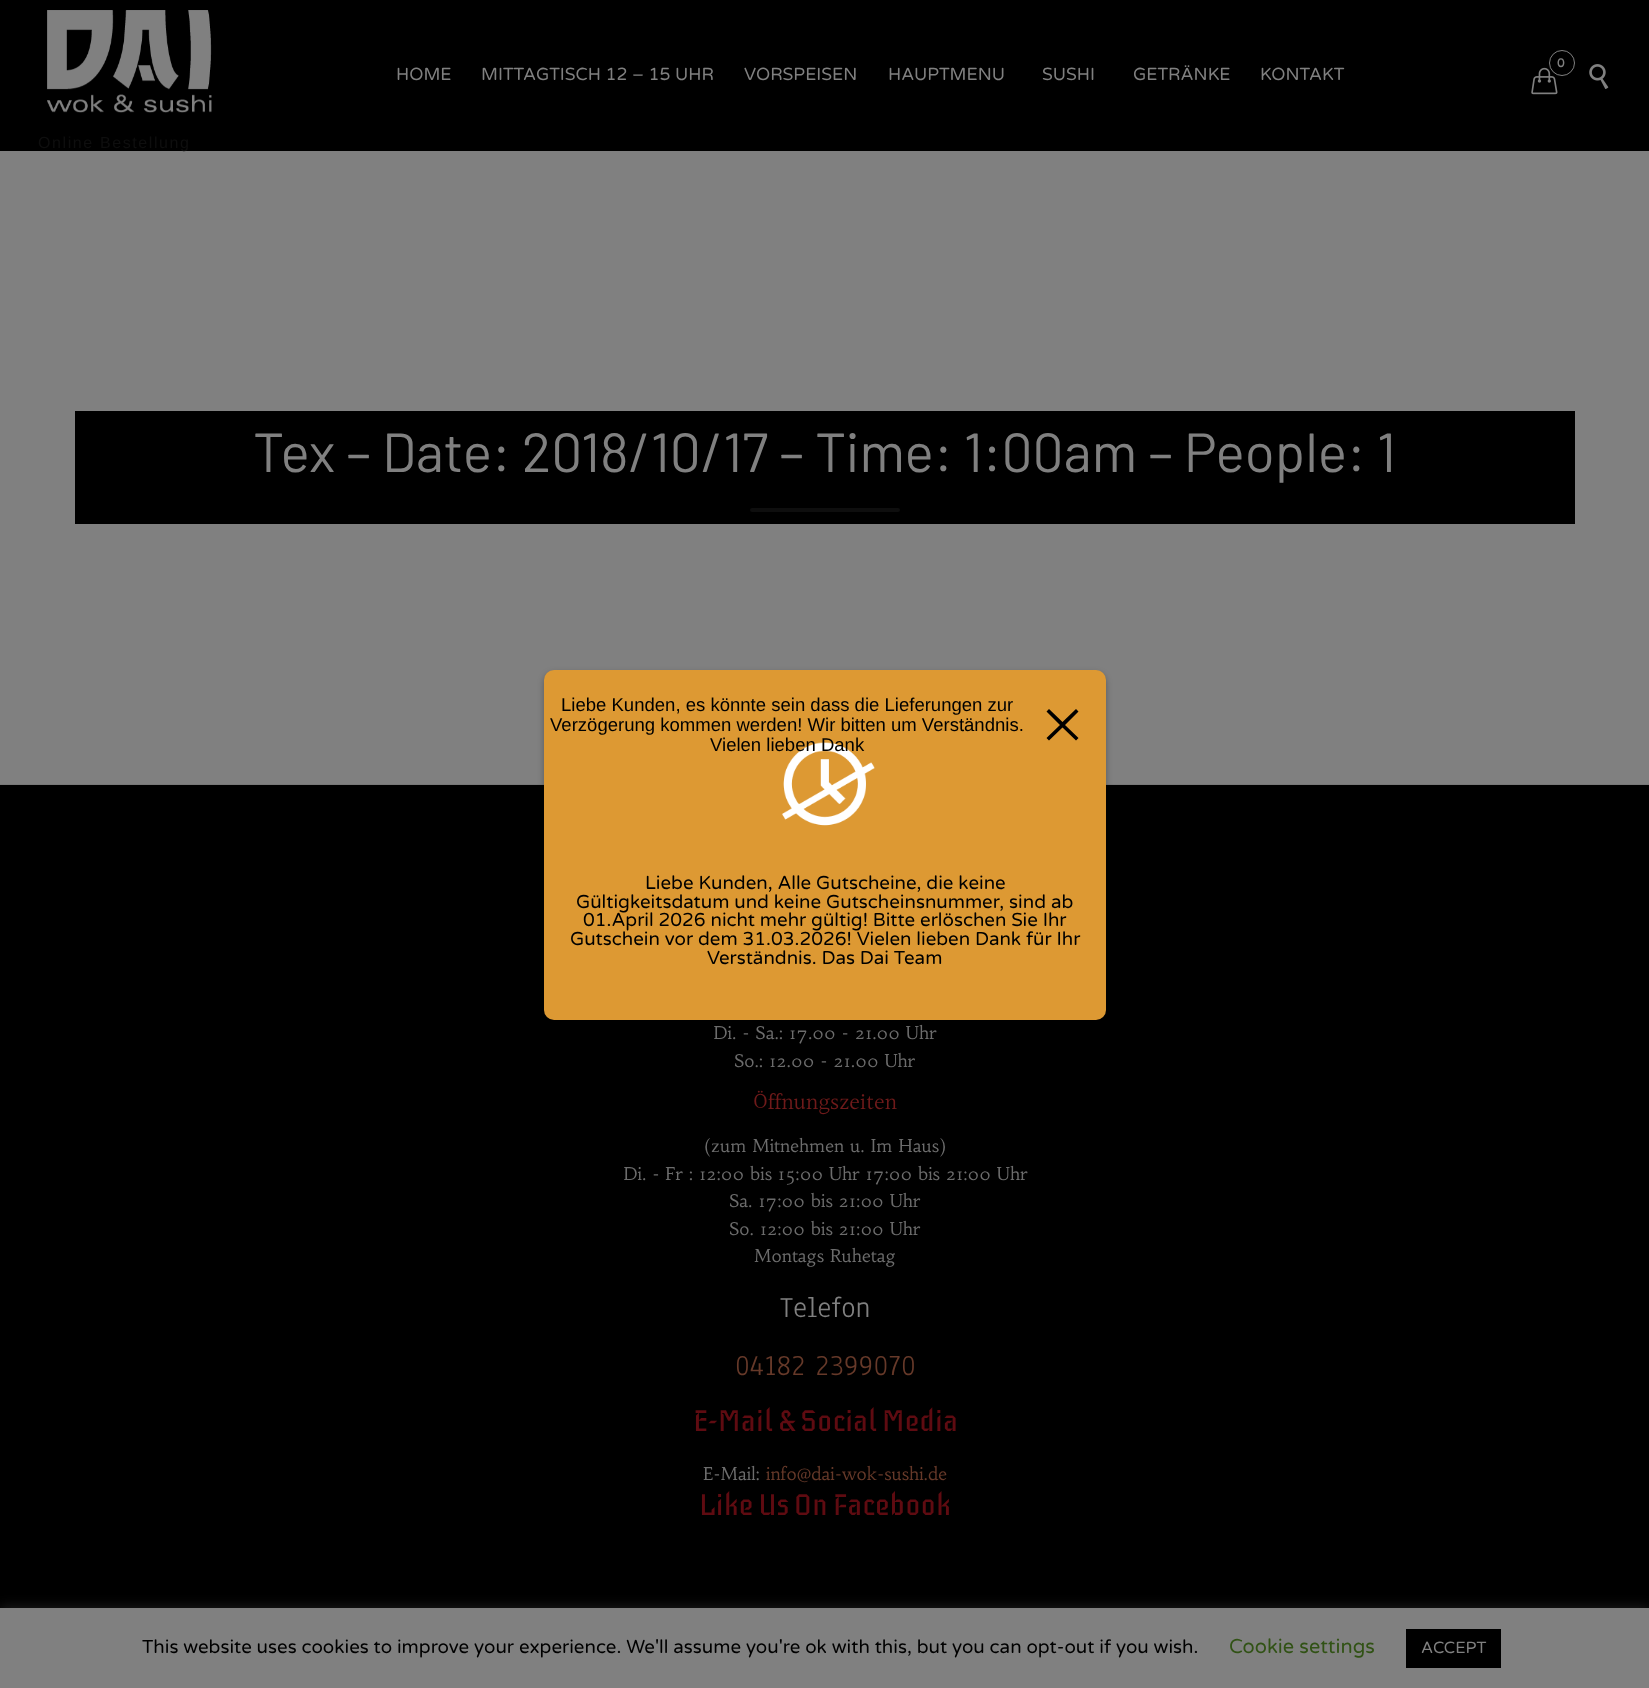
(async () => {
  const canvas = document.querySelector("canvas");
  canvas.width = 1649;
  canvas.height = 1688;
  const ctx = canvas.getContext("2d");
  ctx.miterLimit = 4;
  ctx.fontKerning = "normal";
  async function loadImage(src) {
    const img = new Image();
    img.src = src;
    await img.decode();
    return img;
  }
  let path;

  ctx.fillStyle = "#000000";
  ctx.fillRect(0, 0, 1649, 1688);
  ctx.drawImage(await loadImage("img/1.png"), 1531, 67, 27, 28);
  ctx.beginPath();
  ctx.arc(1562, 63, 12.5, 0, Math.PI * 2);
  ctx.strokeStyle = "#808080";
  ctx.stroke();
  ctx.drawImage(await loadImage("img/2.png"), 1589, 64, 20, 25);
  ctx.drawImage(await loadImage("img/3.png"), 47, 10, 165, 103);
  for (const [x, y, w, h, color] of [
    [0, 151, 1649, 633, "#808080"],
    [0, 784, 1649, 1, "#777777"],
    [75, 411, 1500, 113, "#000000"],
  ]) {
    ctx.fillStyle = color;
    ctx.fillRect(x, y, w, h);
  }
  ctx.fillStyle = "#0e0e0e";
  ctx.beginPath();
  ctx.roundRect(750, 508, 150, 4, 2);
  ctx.fill();
  ctx.fillStyle = "rgba(0, 0, 0, 0.3)";
  ctx.filter = "blur(3px)";
  ctx.beginPath();
  ctx.roundRect(544, 673, 562, 350, 10);
  ctx.fill();
  ctx.filter = "none";
  ctx.fillStyle = "#dd9933";
  ctx.beginPath();
  ctx.roundRect(544, 670, 562, 350, 10);
  ctx.fill();
  ctx.fillStyle = "#000000";
  path = new Path2D("M1062.5 722L1049 709L1046.5 711.5L1060 725L1046.5 738L1049 740.5L1062.5 727.5L1076 740.5L1078.5 738L1065 725L1078.5 711.5L1076 709Z");
  ctx.fill(path);
  ctx.drawImage(await loadImage("img/4.png"), 781, 742, 94, 84);
  ctx.fillStyle = "rgba(86, 86, 86, 0.3)";
  ctx.filter = "blur(6px)";
  ctx.beginPath();
  ctx.rect(0, 1606, 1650, 82);
  ctx.fill();
  ctx.filter = "none";
  ctx.fillStyle = "#808080";
  ctx.fillRect(0, 1608, 1649, 80);
  ctx.fillStyle = "#000000";
  ctx.fillRect(1406, 1629, 95, 39);
  ctx.font = "bold 12px Varela Round";
  ctx.fillStyle = "#808080";
  ctx.fillText("0", 1557, 67);
  ctx.font = "17.5px Varela Round";
  for (const [text, x, y] of [
    ["HOME", 396, 80],
    ["MITTAGTISCH 12 – 15 UHR", 481, 80],
    ["VORSPEISEN", 744, 80],
    ["HAUPTMENU", 888, 80],
    ["SUSHI", 1042, 80],
    ["GETRÄNKE", 1133, 80],
    ["KONTAKT", 1260, 80],
  ]) {
    ctx.fillText(text, x, y);
  }
  ctx.letterSpacing = "1.6px";
  ctx.font = "16px Liberation Sans";
  ctx.fillStyle = "#0e0e0e";
  ctx.fillText("Online Bestellung", 38, 148);
  ctx.letterSpacing = "0px";
  ctx.font = "55px Barlow";
  ctx.fillStyle = "#808080";
  ctx.fillText("Tex – Date: 2018/10/17 – Time: 1:00am – People: 1", 253, 472);
  ctx.font = "17.5px Habibi";
  ctx.fillStyle = "#6c6c6c";
  ctx.fillText("Di. - Sa.: 17.00 - 21.00 Uhr", 713, 1039);
  ctx.fillText("So.: 12.00 - 21.00 Uhr", 734, 1067);
  ctx.font = "22.5px Halant";
  ctx.fillStyle = "#6f1a1a";
  ctx.fillText("Öffnungszeiten", 753, 1110);
  ctx.font = "17.5px Habibi";
  ctx.fillStyle = "#6c6c6c";
  for (const [text, x, y] of [
    ["(zum Mitnehmen u. Im Haus)", 704, 1152],
    ["Di. - Fr : 12:00 bis 15:00 Uhr 17:00 bis 21:00 Uhr", 623, 1180],
    ["Sa. 17:00 bis 21:00 Uhr", 729, 1207],
    ["So. 12:00 bis 21:00 Uhr", 729, 1235],
    ["Montags Ruhetag", 754, 1262],
  ]) {
    ctx.fillText(text, x, y);
  }
  ctx.font = "30px Anaheim";
  ctx.fillStyle = "#808080";
  ctx.fillText("Telefon", 780, 1317);
  ctx.fillStyle = "#663929";
  ctx.fillText("04182 2399070", 735, 1375);
  ctx.font = "30px Iceberg";
  ctx.fillStyle = "#5f0b11";
  ctx.fillText("E-Mail & Social Media", 693, 1431);
  ctx.font = "17.5px Habibi";
  ctx.fillStyle = "#6c6c6c";
  ctx.fillText("E-Mail:", 703, 1480);
  ctx.fillStyle = "#663929";
  ctx.fillText("info@dai-wok-sushi.de", 766, 1480);
  ctx.font = "30px Iceberg";
  ctx.fillStyle = "#5f0b11";
  ctx.fillText("Like Us On Facebook", 699, 1515);
  ctx.font = "18.55px Liberation Sans";
  ctx.fillStyle = "#000000";
  for (const [text, x, y] of [
    ["Liebe Kunden, es könnte sein dass die Lieferungen zur", 561, 711],
    ["Verzögerung kommen werden! Wir bitten um Verständnis.", 550, 731],
    ["Vielen lieben Dank", 710, 751],
  ]) {
    ctx.fillText(text, x, y);
  }
  ctx.font = "18.75px Varela Round";
  for (const [text, x, y] of [
    ["Liebe Kunden, Alle Gutscheine, die keine", 645, 889],
    ["Gültigkeitsdatum und keine Gutscheinsnummer, sind ab", 576, 908],
    ["01.April 2026 nicht mehr gültig! Bitte erlöschen Sie Ihr", 583, 926],
    ["Gutschein vor dem 31.03.2026! Vielen lieben Dank für Ihr", 570, 945],
    ["Verständnis. Das Dai Team", 707, 964],
    ["This website uses cookies to improve your experience. We'll assume you're ok with this, but you can opt-out if you wish.", 142, 1653],
  ]) {
    ctx.fillText(text, x, y);
  }
  ctx.font = "20px Varela Round";
  ctx.fillStyle = "#315215";
  ctx.fillText("Cookie settings", 1229, 1653);
  ctx.font = "16.25px Varela Round";
  ctx.fillStyle = "#808080";
  ctx.fillText("ACCEPT", 1421, 1653);
})();
